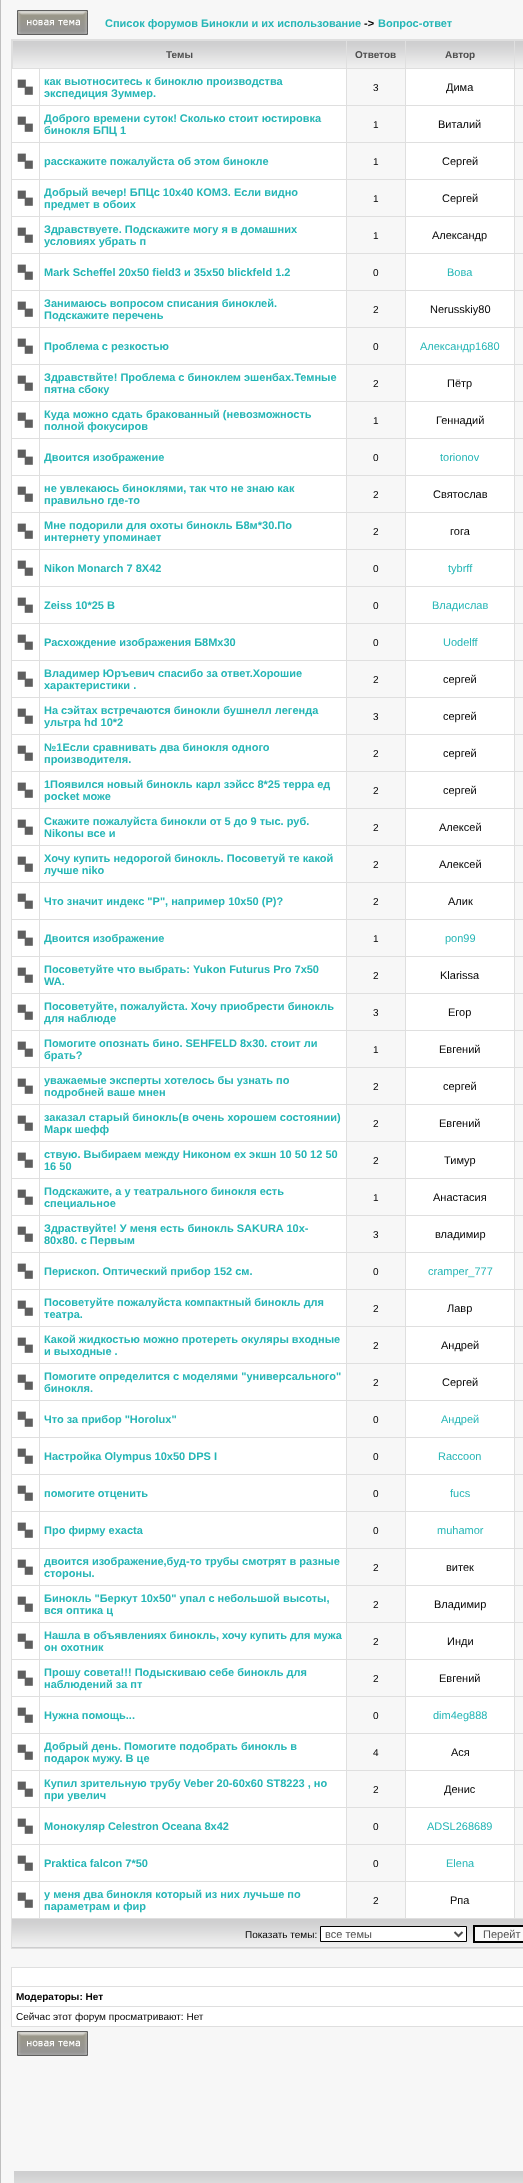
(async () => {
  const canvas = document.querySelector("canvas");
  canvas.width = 523;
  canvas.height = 2183;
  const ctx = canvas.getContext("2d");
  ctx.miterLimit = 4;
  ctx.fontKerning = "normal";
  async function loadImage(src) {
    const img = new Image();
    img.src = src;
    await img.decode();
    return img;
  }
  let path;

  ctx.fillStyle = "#f7f7f7";
  ctx.fillRect(0, 0, 523, 2183);
  ctx.strokeStyle = "#bfbfbf";
  ctx.strokeRect(0.5, -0.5, 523, 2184);
  ctx.drawImage(await loadImage("img/1.png"), 17, 10, 71, 25);
  ctx.fillStyle = "#dfdfdf";
  ctx.fillRect(11, 39, 512, 1910);
  ctx.drawImage(await loadImage("img/2.png"), 13, 41, 333, 27);
  ctx.drawImage(await loadImage("img/3.png"), 347, 41, 58, 27);
  ctx.drawImage(await loadImage("img/4.png"), 406, 41, 108, 27);
  ctx.drawImage(await loadImage("img/5.png"), 515, 41, 8, 27);
  ctx.fillStyle = "#ffffff";
  ctx.fillRect(12, 69, 27, 36);
  ctx.drawImage(await loadImage("img/6.png"), 17, 79, 16, 16);
  for (const [x, y, w, h, color] of [
    [40, 69, 306, 36, "#ffffff"],
    [347, 69, 58, 36, "#f7f7f7"],
    [406, 69, 108, 36, "#ffffff"],
    [515, 69, 8, 36, "#f7f7f7"],
    [12, 106, 27, 36, "#ffffff"],
  ]) {
    ctx.fillStyle = color;
    ctx.fillRect(x, y, w, h);
  }
  ctx.drawImage(await loadImage("img/6.png"), 17, 116, 16, 16);
  for (const [x, y, w, h, color] of [
    [40, 106, 306, 36, "#ffffff"],
    [347, 106, 58, 36, "#f7f7f7"],
    [406, 106, 108, 36, "#ffffff"],
    [515, 106, 8, 36, "#f7f7f7"],
    [12, 143, 27, 36, "#ffffff"],
  ]) {
    ctx.fillStyle = color;
    ctx.fillRect(x, y, w, h);
  }
  ctx.drawImage(await loadImage("img/6.png"), 17, 153, 16, 16);
  for (const [x, y, w, h, color] of [
    [40, 143, 306, 36, "#ffffff"],
    [347, 143, 58, 36, "#f7f7f7"],
    [406, 143, 108, 36, "#ffffff"],
    [515, 143, 8, 36, "#f7f7f7"],
    [12, 180, 27, 36, "#ffffff"],
  ]) {
    ctx.fillStyle = color;
    ctx.fillRect(x, y, w, h);
  }
  ctx.drawImage(await loadImage("img/6.png"), 17, 190, 16, 16);
  for (const [x, y, w, h, color] of [
    [40, 180, 306, 36, "#ffffff"],
    [347, 180, 58, 36, "#f7f7f7"],
    [406, 180, 108, 36, "#ffffff"],
    [515, 180, 8, 36, "#f7f7f7"],
    [12, 217, 27, 36, "#ffffff"],
  ]) {
    ctx.fillStyle = color;
    ctx.fillRect(x, y, w, h);
  }
  ctx.drawImage(await loadImage("img/6.png"), 17, 227, 16, 16);
  for (const [x, y, w, h, color] of [
    [40, 217, 306, 36, "#ffffff"],
    [347, 217, 58, 36, "#f7f7f7"],
    [406, 217, 108, 36, "#ffffff"],
    [515, 217, 8, 36, "#f7f7f7"],
    [12, 254, 27, 36, "#ffffff"],
  ]) {
    ctx.fillStyle = color;
    ctx.fillRect(x, y, w, h);
  }
  ctx.drawImage(await loadImage("img/6.png"), 17, 264, 16, 16);
  for (const [x, y, w, h, color] of [
    [40, 254, 306, 36, "#ffffff"],
    [347, 254, 58, 36, "#f7f7f7"],
    [406, 254, 108, 36, "#ffffff"],
    [515, 254, 8, 36, "#f7f7f7"],
    [12, 291, 27, 36, "#ffffff"],
  ]) {
    ctx.fillStyle = color;
    ctx.fillRect(x, y, w, h);
  }
  ctx.drawImage(await loadImage("img/6.png"), 17, 301, 16, 16);
  for (const [x, y, w, h, color] of [
    [40, 291, 306, 36, "#ffffff"],
    [347, 291, 58, 36, "#f7f7f7"],
    [406, 291, 108, 36, "#ffffff"],
    [515, 291, 8, 36, "#f7f7f7"],
    [12, 328, 27, 36, "#ffffff"],
  ]) {
    ctx.fillStyle = color;
    ctx.fillRect(x, y, w, h);
  }
  ctx.drawImage(await loadImage("img/6.png"), 17, 338, 16, 16);
  for (const [x, y, w, h, color] of [
    [40, 328, 306, 36, "#ffffff"],
    [347, 328, 58, 36, "#f7f7f7"],
    [406, 328, 108, 36, "#ffffff"],
    [515, 328, 8, 36, "#f7f7f7"],
    [12, 365, 27, 36, "#ffffff"],
  ]) {
    ctx.fillStyle = color;
    ctx.fillRect(x, y, w, h);
  }
  ctx.drawImage(await loadImage("img/6.png"), 17, 375, 16, 16);
  for (const [x, y, w, h, color] of [
    [40, 365, 306, 36, "#ffffff"],
    [347, 365, 58, 36, "#f7f7f7"],
    [406, 365, 108, 36, "#ffffff"],
    [515, 365, 8, 36, "#f7f7f7"],
    [12, 402, 27, 36, "#ffffff"],
  ]) {
    ctx.fillStyle = color;
    ctx.fillRect(x, y, w, h);
  }
  ctx.drawImage(await loadImage("img/6.png"), 17, 412, 16, 16);
  for (const [x, y, w, h, color] of [
    [40, 402, 306, 36, "#ffffff"],
    [347, 402, 58, 36, "#f7f7f7"],
    [406, 402, 108, 36, "#ffffff"],
    [515, 402, 8, 36, "#f7f7f7"],
    [12, 439, 27, 36, "#ffffff"],
  ]) {
    ctx.fillStyle = color;
    ctx.fillRect(x, y, w, h);
  }
  ctx.drawImage(await loadImage("img/6.png"), 17, 449, 16, 16);
  for (const [x, y, w, h, color] of [
    [40, 439, 306, 36, "#ffffff"],
    [347, 439, 58, 36, "#f7f7f7"],
    [406, 439, 108, 36, "#ffffff"],
    [515, 439, 8, 36, "#f7f7f7"],
    [12, 476, 27, 36, "#ffffff"],
  ]) {
    ctx.fillStyle = color;
    ctx.fillRect(x, y, w, h);
  }
  ctx.drawImage(await loadImage("img/6.png"), 17, 486, 16, 16);
  for (const [x, y, w, h, color] of [
    [40, 476, 306, 36, "#ffffff"],
    [347, 476, 58, 36, "#f7f7f7"],
    [406, 476, 108, 36, "#ffffff"],
    [515, 476, 8, 36, "#f7f7f7"],
    [12, 513, 27, 36, "#ffffff"],
  ]) {
    ctx.fillStyle = color;
    ctx.fillRect(x, y, w, h);
  }
  ctx.drawImage(await loadImage("img/6.png"), 17, 523, 16, 16);
  for (const [x, y, w, h, color] of [
    [40, 513, 306, 36, "#ffffff"],
    [347, 513, 58, 36, "#f7f7f7"],
    [406, 513, 108, 36, "#ffffff"],
    [515, 513, 8, 36, "#f7f7f7"],
    [12, 550, 27, 36, "#ffffff"],
  ]) {
    ctx.fillStyle = color;
    ctx.fillRect(x, y, w, h);
  }
  ctx.drawImage(await loadImage("img/6.png"), 17, 560, 16, 16);
  for (const [x, y, w, h, color] of [
    [40, 550, 306, 36, "#ffffff"],
    [347, 550, 58, 36, "#f7f7f7"],
    [406, 550, 108, 36, "#ffffff"],
    [515, 550, 8, 36, "#f7f7f7"],
    [12, 587, 27, 36, "#ffffff"],
  ]) {
    ctx.fillStyle = color;
    ctx.fillRect(x, y, w, h);
  }
  ctx.drawImage(await loadImage("img/6.png"), 17, 597, 16, 16);
  for (const [x, y, w, h, color] of [
    [40, 587, 306, 36, "#ffffff"],
    [347, 587, 58, 36, "#f7f7f7"],
    [406, 587, 108, 36, "#ffffff"],
    [515, 587, 8, 36, "#f7f7f7"],
    [12, 624, 27, 36, "#ffffff"],
  ]) {
    ctx.fillStyle = color;
    ctx.fillRect(x, y, w, h);
  }
  ctx.drawImage(await loadImage("img/6.png"), 17, 634, 16, 16);
  for (const [x, y, w, h, color] of [
    [40, 624, 306, 36, "#ffffff"],
    [347, 624, 58, 36, "#f7f7f7"],
    [406, 624, 108, 36, "#ffffff"],
    [515, 624, 8, 36, "#f7f7f7"],
    [12, 661, 27, 36, "#ffffff"],
  ]) {
    ctx.fillStyle = color;
    ctx.fillRect(x, y, w, h);
  }
  ctx.drawImage(await loadImage("img/6.png"), 17, 671, 16, 16);
  for (const [x, y, w, h, color] of [
    [40, 661, 306, 36, "#ffffff"],
    [347, 661, 58, 36, "#f7f7f7"],
    [406, 661, 108, 36, "#ffffff"],
    [515, 661, 8, 36, "#f7f7f7"],
    [12, 698, 27, 36, "#ffffff"],
  ]) {
    ctx.fillStyle = color;
    ctx.fillRect(x, y, w, h);
  }
  ctx.drawImage(await loadImage("img/6.png"), 17, 708, 16, 16);
  for (const [x, y, w, h, color] of [
    [40, 698, 306, 36, "#ffffff"],
    [347, 698, 58, 36, "#f7f7f7"],
    [406, 698, 108, 36, "#ffffff"],
    [515, 698, 8, 36, "#f7f7f7"],
    [12, 735, 27, 36, "#ffffff"],
  ]) {
    ctx.fillStyle = color;
    ctx.fillRect(x, y, w, h);
  }
  ctx.drawImage(await loadImage("img/6.png"), 17, 745, 16, 16);
  for (const [x, y, w, h, color] of [
    [40, 735, 306, 36, "#ffffff"],
    [347, 735, 58, 36, "#f7f7f7"],
    [406, 735, 108, 36, "#ffffff"],
    [515, 735, 8, 36, "#f7f7f7"],
    [12, 772, 27, 36, "#ffffff"],
  ]) {
    ctx.fillStyle = color;
    ctx.fillRect(x, y, w, h);
  }
  ctx.drawImage(await loadImage("img/6.png"), 17, 782, 16, 16);
  for (const [x, y, w, h, color] of [
    [40, 772, 306, 36, "#ffffff"],
    [347, 772, 58, 36, "#f7f7f7"],
    [406, 772, 108, 36, "#ffffff"],
    [515, 772, 8, 36, "#f7f7f7"],
    [12, 809, 27, 36, "#ffffff"],
  ]) {
    ctx.fillStyle = color;
    ctx.fillRect(x, y, w, h);
  }
  ctx.drawImage(await loadImage("img/6.png"), 17, 819, 16, 16);
  for (const [x, y, w, h, color] of [
    [40, 809, 306, 36, "#ffffff"],
    [347, 809, 58, 36, "#f7f7f7"],
    [406, 809, 108, 36, "#ffffff"],
    [515, 809, 8, 36, "#f7f7f7"],
    [12, 846, 27, 36, "#ffffff"],
  ]) {
    ctx.fillStyle = color;
    ctx.fillRect(x, y, w, h);
  }
  ctx.drawImage(await loadImage("img/6.png"), 17, 856, 16, 16);
  for (const [x, y, w, h, color] of [
    [40, 846, 306, 36, "#ffffff"],
    [347, 846, 58, 36, "#f7f7f7"],
    [406, 846, 108, 36, "#ffffff"],
    [515, 846, 8, 36, "#f7f7f7"],
    [12, 883, 27, 36, "#ffffff"],
  ]) {
    ctx.fillStyle = color;
    ctx.fillRect(x, y, w, h);
  }
  ctx.drawImage(await loadImage("img/6.png"), 17, 893, 16, 16);
  for (const [x, y, w, h, color] of [
    [40, 883, 306, 36, "#ffffff"],
    [347, 883, 58, 36, "#f7f7f7"],
    [406, 883, 108, 36, "#ffffff"],
    [515, 883, 8, 36, "#f7f7f7"],
    [12, 920, 27, 36, "#ffffff"],
  ]) {
    ctx.fillStyle = color;
    ctx.fillRect(x, y, w, h);
  }
  ctx.drawImage(await loadImage("img/6.png"), 17, 930, 16, 16);
  for (const [x, y, w, h, color] of [
    [40, 920, 306, 36, "#ffffff"],
    [347, 920, 58, 36, "#f7f7f7"],
    [406, 920, 108, 36, "#ffffff"],
    [515, 920, 8, 36, "#f7f7f7"],
    [12, 957, 27, 36, "#ffffff"],
  ]) {
    ctx.fillStyle = color;
    ctx.fillRect(x, y, w, h);
  }
  ctx.drawImage(await loadImage("img/6.png"), 17, 967, 16, 16);
  for (const [x, y, w, h, color] of [
    [40, 957, 306, 36, "#ffffff"],
    [347, 957, 58, 36, "#f7f7f7"],
    [406, 957, 108, 36, "#ffffff"],
    [515, 957, 8, 36, "#f7f7f7"],
    [12, 994, 27, 36, "#ffffff"],
  ]) {
    ctx.fillStyle = color;
    ctx.fillRect(x, y, w, h);
  }
  ctx.drawImage(await loadImage("img/6.png"), 17, 1004, 16, 16);
  for (const [x, y, w, h, color] of [
    [40, 994, 306, 36, "#ffffff"],
    [347, 994, 58, 36, "#f7f7f7"],
    [406, 994, 108, 36, "#ffffff"],
    [515, 994, 8, 36, "#f7f7f7"],
    [12, 1031, 27, 36, "#ffffff"],
  ]) {
    ctx.fillStyle = color;
    ctx.fillRect(x, y, w, h);
  }
  ctx.drawImage(await loadImage("img/6.png"), 17, 1041, 16, 16);
  for (const [x, y, w, h, color] of [
    [40, 1031, 306, 36, "#ffffff"],
    [347, 1031, 58, 36, "#f7f7f7"],
    [406, 1031, 108, 36, "#ffffff"],
    [515, 1031, 8, 36, "#f7f7f7"],
    [12, 1068, 27, 36, "#ffffff"],
  ]) {
    ctx.fillStyle = color;
    ctx.fillRect(x, y, w, h);
  }
  ctx.drawImage(await loadImage("img/6.png"), 17, 1078, 16, 16);
  for (const [x, y, w, h, color] of [
    [40, 1068, 306, 36, "#ffffff"],
    [347, 1068, 58, 36, "#f7f7f7"],
    [406, 1068, 108, 36, "#ffffff"],
    [515, 1068, 8, 36, "#f7f7f7"],
    [12, 1105, 27, 36, "#ffffff"],
  ]) {
    ctx.fillStyle = color;
    ctx.fillRect(x, y, w, h);
  }
  ctx.drawImage(await loadImage("img/6.png"), 17, 1115, 16, 16);
  for (const [x, y, w, h, color] of [
    [40, 1105, 306, 36, "#ffffff"],
    [347, 1105, 58, 36, "#f7f7f7"],
    [406, 1105, 108, 36, "#ffffff"],
    [515, 1105, 8, 36, "#f7f7f7"],
    [12, 1142, 27, 36, "#ffffff"],
  ]) {
    ctx.fillStyle = color;
    ctx.fillRect(x, y, w, h);
  }
  ctx.drawImage(await loadImage("img/6.png"), 17, 1152, 16, 16);
  for (const [x, y, w, h, color] of [
    [40, 1142, 306, 36, "#ffffff"],
    [347, 1142, 58, 36, "#f7f7f7"],
    [406, 1142, 108, 36, "#ffffff"],
    [515, 1142, 8, 36, "#f7f7f7"],
    [12, 1179, 27, 36, "#ffffff"],
  ]) {
    ctx.fillStyle = color;
    ctx.fillRect(x, y, w, h);
  }
  ctx.drawImage(await loadImage("img/6.png"), 17, 1189, 16, 16);
  for (const [x, y, w, h, color] of [
    [40, 1179, 306, 36, "#ffffff"],
    [347, 1179, 58, 36, "#f7f7f7"],
    [406, 1179, 108, 36, "#ffffff"],
    [515, 1179, 8, 36, "#f7f7f7"],
    [12, 1216, 27, 36, "#ffffff"],
  ]) {
    ctx.fillStyle = color;
    ctx.fillRect(x, y, w, h);
  }
  ctx.drawImage(await loadImage("img/6.png"), 17, 1226, 16, 16);
  for (const [x, y, w, h, color] of [
    [40, 1216, 306, 36, "#ffffff"],
    [347, 1216, 58, 36, "#f7f7f7"],
    [406, 1216, 108, 36, "#ffffff"],
    [515, 1216, 8, 36, "#f7f7f7"],
    [12, 1253, 27, 36, "#ffffff"],
  ]) {
    ctx.fillStyle = color;
    ctx.fillRect(x, y, w, h);
  }
  ctx.drawImage(await loadImage("img/6.png"), 17, 1263, 16, 16);
  for (const [x, y, w, h, color] of [
    [40, 1253, 306, 36, "#ffffff"],
    [347, 1253, 58, 36, "#f7f7f7"],
    [406, 1253, 108, 36, "#ffffff"],
    [515, 1253, 8, 36, "#f7f7f7"],
    [12, 1290, 27, 36, "#ffffff"],
  ]) {
    ctx.fillStyle = color;
    ctx.fillRect(x, y, w, h);
  }
  ctx.drawImage(await loadImage("img/6.png"), 17, 1300, 16, 16);
  for (const [x, y, w, h, color] of [
    [40, 1290, 306, 36, "#ffffff"],
    [347, 1290, 58, 36, "#f7f7f7"],
    [406, 1290, 108, 36, "#ffffff"],
    [515, 1290, 8, 36, "#f7f7f7"],
    [12, 1327, 27, 36, "#ffffff"],
  ]) {
    ctx.fillStyle = color;
    ctx.fillRect(x, y, w, h);
  }
  ctx.drawImage(await loadImage("img/6.png"), 17, 1337, 16, 16);
  for (const [x, y, w, h, color] of [
    [40, 1327, 306, 36, "#ffffff"],
    [347, 1327, 58, 36, "#f7f7f7"],
    [406, 1327, 108, 36, "#ffffff"],
    [515, 1327, 8, 36, "#f7f7f7"],
    [12, 1364, 27, 36, "#ffffff"],
  ]) {
    ctx.fillStyle = color;
    ctx.fillRect(x, y, w, h);
  }
  ctx.drawImage(await loadImage("img/6.png"), 17, 1374, 16, 16);
  for (const [x, y, w, h, color] of [
    [40, 1364, 306, 36, "#ffffff"],
    [347, 1364, 58, 36, "#f7f7f7"],
    [406, 1364, 108, 36, "#ffffff"],
    [515, 1364, 8, 36, "#f7f7f7"],
    [12, 1401, 27, 36, "#ffffff"],
  ]) {
    ctx.fillStyle = color;
    ctx.fillRect(x, y, w, h);
  }
  ctx.drawImage(await loadImage("img/6.png"), 17, 1411, 16, 16);
  for (const [x, y, w, h, color] of [
    [40, 1401, 306, 36, "#ffffff"],
    [347, 1401, 58, 36, "#f7f7f7"],
    [406, 1401, 108, 36, "#ffffff"],
    [515, 1401, 8, 36, "#f7f7f7"],
    [12, 1438, 27, 36, "#ffffff"],
  ]) {
    ctx.fillStyle = color;
    ctx.fillRect(x, y, w, h);
  }
  ctx.drawImage(await loadImage("img/6.png"), 17, 1448, 16, 16);
  for (const [x, y, w, h, color] of [
    [40, 1438, 306, 36, "#ffffff"],
    [347, 1438, 58, 36, "#f7f7f7"],
    [406, 1438, 108, 36, "#ffffff"],
    [515, 1438, 8, 36, "#f7f7f7"],
    [12, 1475, 27, 36, "#ffffff"],
  ]) {
    ctx.fillStyle = color;
    ctx.fillRect(x, y, w, h);
  }
  ctx.drawImage(await loadImage("img/6.png"), 17, 1485, 16, 16);
  for (const [x, y, w, h, color] of [
    [40, 1475, 306, 36, "#ffffff"],
    [347, 1475, 58, 36, "#f7f7f7"],
    [406, 1475, 108, 36, "#ffffff"],
    [515, 1475, 8, 36, "#f7f7f7"],
    [12, 1512, 27, 36, "#ffffff"],
  ]) {
    ctx.fillStyle = color;
    ctx.fillRect(x, y, w, h);
  }
  ctx.drawImage(await loadImage("img/6.png"), 17, 1522, 16, 16);
  for (const [x, y, w, h, color] of [
    [40, 1512, 306, 36, "#ffffff"],
    [347, 1512, 58, 36, "#f7f7f7"],
    [406, 1512, 108, 36, "#ffffff"],
    [515, 1512, 8, 36, "#f7f7f7"],
    [12, 1549, 27, 36, "#ffffff"],
  ]) {
    ctx.fillStyle = color;
    ctx.fillRect(x, y, w, h);
  }
  ctx.drawImage(await loadImage("img/6.png"), 17, 1559, 16, 16);
  for (const [x, y, w, h, color] of [
    [40, 1549, 306, 36, "#ffffff"],
    [347, 1549, 58, 36, "#f7f7f7"],
    [406, 1549, 108, 36, "#ffffff"],
    [515, 1549, 8, 36, "#f7f7f7"],
    [12, 1586, 27, 36, "#ffffff"],
  ]) {
    ctx.fillStyle = color;
    ctx.fillRect(x, y, w, h);
  }
  ctx.drawImage(await loadImage("img/6.png"), 17, 1596, 16, 16);
  for (const [x, y, w, h, color] of [
    [40, 1586, 306, 36, "#ffffff"],
    [347, 1586, 58, 36, "#f7f7f7"],
    [406, 1586, 108, 36, "#ffffff"],
    [515, 1586, 8, 36, "#f7f7f7"],
    [12, 1623, 27, 36, "#ffffff"],
  ]) {
    ctx.fillStyle = color;
    ctx.fillRect(x, y, w, h);
  }
  ctx.drawImage(await loadImage("img/6.png"), 17, 1633, 16, 16);
  for (const [x, y, w, h, color] of [
    [40, 1623, 306, 36, "#ffffff"],
    [347, 1623, 58, 36, "#f7f7f7"],
    [406, 1623, 108, 36, "#ffffff"],
    [515, 1623, 8, 36, "#f7f7f7"],
    [12, 1660, 27, 36, "#ffffff"],
  ]) {
    ctx.fillStyle = color;
    ctx.fillRect(x, y, w, h);
  }
  ctx.drawImage(await loadImage("img/6.png"), 17, 1670, 16, 16);
  for (const [x, y, w, h, color] of [
    [40, 1660, 306, 36, "#ffffff"],
    [347, 1660, 58, 36, "#f7f7f7"],
    [406, 1660, 108, 36, "#ffffff"],
    [515, 1660, 8, 36, "#f7f7f7"],
    [12, 1697, 27, 36, "#ffffff"],
  ]) {
    ctx.fillStyle = color;
    ctx.fillRect(x, y, w, h);
  }
  ctx.drawImage(await loadImage("img/6.png"), 17, 1707, 16, 16);
  for (const [x, y, w, h, color] of [
    [40, 1697, 306, 36, "#ffffff"],
    [347, 1697, 58, 36, "#f7f7f7"],
    [406, 1697, 108, 36, "#ffffff"],
    [515, 1697, 8, 36, "#f7f7f7"],
    [12, 1734, 27, 36, "#ffffff"],
  ]) {
    ctx.fillStyle = color;
    ctx.fillRect(x, y, w, h);
  }
  ctx.drawImage(await loadImage("img/6.png"), 17, 1744, 16, 16);
  for (const [x, y, w, h, color] of [
    [40, 1734, 306, 36, "#ffffff"],
    [347, 1734, 58, 36, "#f7f7f7"],
    [406, 1734, 108, 36, "#ffffff"],
    [515, 1734, 8, 36, "#f7f7f7"],
    [12, 1771, 27, 36, "#ffffff"],
  ]) {
    ctx.fillStyle = color;
    ctx.fillRect(x, y, w, h);
  }
  ctx.drawImage(await loadImage("img/6.png"), 17, 1781, 16, 16);
  for (const [x, y, w, h, color] of [
    [40, 1771, 306, 36, "#ffffff"],
    [347, 1771, 58, 36, "#f7f7f7"],
    [406, 1771, 108, 36, "#ffffff"],
    [515, 1771, 8, 36, "#f7f7f7"],
    [12, 1808, 27, 36, "#ffffff"],
  ]) {
    ctx.fillStyle = color;
    ctx.fillRect(x, y, w, h);
  }
  ctx.drawImage(await loadImage("img/6.png"), 17, 1818, 16, 16);
  for (const [x, y, w, h, color] of [
    [40, 1808, 306, 36, "#ffffff"],
    [347, 1808, 58, 36, "#f7f7f7"],
    [406, 1808, 108, 36, "#ffffff"],
    [515, 1808, 8, 36, "#f7f7f7"],
    [12, 1845, 27, 36, "#ffffff"],
  ]) {
    ctx.fillStyle = color;
    ctx.fillRect(x, y, w, h);
  }
  ctx.drawImage(await loadImage("img/6.png"), 17, 1855, 16, 16);
  for (const [x, y, w, h, color] of [
    [40, 1845, 306, 36, "#ffffff"],
    [347, 1845, 58, 36, "#f7f7f7"],
    [406, 1845, 108, 36, "#ffffff"],
    [515, 1845, 8, 36, "#f7f7f7"],
    [12, 1882, 27, 36, "#ffffff"],
  ]) {
    ctx.fillStyle = color;
    ctx.fillRect(x, y, w, h);
  }
  ctx.drawImage(await loadImage("img/6.png"), 17, 1892, 16, 16);
  for (const [x, y, w, h, color] of [
    [40, 1882, 306, 36, "#ffffff"],
    [347, 1882, 58, 36, "#f7f7f7"],
    [406, 1882, 108, 36, "#ffffff"],
    [515, 1882, 8, 36, "#f7f7f7"],
  ]) {
    ctx.fillStyle = color;
    ctx.fillRect(x, y, w, h);
  }
  ctx.drawImage(await loadImage("img/7.png"), 12, 1919, 511, 29);
  ctx.fillStyle = "#ffffff";
  ctx.beginPath();
  ctx.rect(320.5, 1926.5, 146, 15);
  ctx.fill();
  ctx.strokeStyle = "#000000";
  ctx.stroke();
  path = new Path2D("M454.5 1932L458.5 1936L462.5 1932");
  ctx.strokeStyle = "#4f4f4f";
  ctx.lineWidth = 2;
  ctx.stroke(path);
  ctx.fillStyle = "#fafafa";
  ctx.beginPath();
  ctx.rect(474, 1926, 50, 16);
  ctx.fill();
  ctx.strokeStyle = "#000000";
  ctx.stroke();
  for (const [x, y, w, h, color] of [
    [11, 1967, 512, 60, "#dfdfdf"],
    [12, 1968, 511, 18, "#ffffff"],
    [12, 1987, 511, 19, "#ffffff"],
    [12, 2007, 511, 19, "#ffffff"],
  ]) {
    ctx.fillStyle = color;
    ctx.fillRect(x, y, w, h);
  }
  ctx.drawImage(await loadImage("img/1.png"), 17, 2031, 71, 25);
  ctx.drawImage(await loadImage("img/8.png"), 14, 2171, 509, 12);
  ctx.font = "bold 11px Liberation Sans";
  ctx.fillStyle = "#25b6b6";
  ctx.fillText("Список форумов Бинокли и их использование", 105, 27);
  ctx.fillStyle = "#000000";
  ctx.fillText("->", 364, 27);
  ctx.fillStyle = "#25b6b6";
  ctx.fillText("Вопрос-ответ", 378, 27);
  ctx.font = "bold 10px Liberation Sans";
  ctx.fillStyle = "#4f4f4f";
  for (const [text, x, y] of [
    ["Темы", 166, 58],
    ["Ответов", 355, 58],
    ["Автор", 445, 58],
  ]) {
    ctx.fillText(text, x, y);
  }
  ctx.font = "bold 11px Liberation Sans";
  ctx.fillStyle = "#25b6b6";
  ctx.fillText("как выотноситесь к биноклю производства", 44, 85);
  ctx.fillText("экспедиция Зуммер.", 44, 97);
  ctx.font = "10px Liberation Sans";
  ctx.fillStyle = "#000000";
  ctx.fillText("3", 373, 91);
  ctx.font = "11px Liberation Sans";
  ctx.fillText("Дима", 446, 91);
  ctx.font = "bold 11px Liberation Sans";
  ctx.fillStyle = "#25b6b6";
  ctx.fillText("Доброго времени суток! Сколько стоит юстировка", 44, 122);
  ctx.fillText("бинокля БПЦ 1", 44, 134);
  ctx.font = "10px Liberation Sans";
  ctx.fillStyle = "#000000";
  ctx.fillText("1", 373, 128);
  ctx.font = "11px Liberation Sans";
  ctx.fillText("Виталий", 438, 128);
  ctx.font = "bold 11px Liberation Sans";
  ctx.fillStyle = "#25b6b6";
  ctx.fillText("расскажите пожалуйста об этом бинокле", 44, 165);
  ctx.font = "10px Liberation Sans";
  ctx.fillStyle = "#000000";
  ctx.fillText("1", 373, 165);
  ctx.font = "11px Liberation Sans";
  ctx.fillText("Сергей", 442, 165);
  ctx.font = "bold 11px Liberation Sans";
  ctx.fillStyle = "#25b6b6";
  ctx.fillText("Добрый вечер! БПЦс 10х40 КОМЗ. Если видно", 44, 196);
  ctx.fillText("предмет в обоих", 44, 208);
  ctx.font = "10px Liberation Sans";
  ctx.fillStyle = "#000000";
  ctx.fillText("1", 373, 202);
  ctx.font = "11px Liberation Sans";
  ctx.fillText("Сергей", 442, 202);
  ctx.font = "bold 11px Liberation Sans";
  ctx.fillStyle = "#25b6b6";
  ctx.fillText("Здравствуете. Подскажите могу я в домашних", 44, 233);
  ctx.fillText("условиях убрать п", 44, 245);
  ctx.font = "10px Liberation Sans";
  ctx.fillStyle = "#000000";
  ctx.fillText("1", 373, 239);
  ctx.font = "11px Liberation Sans";
  ctx.fillText("Александр", 432, 239);
  ctx.font = "bold 11px Liberation Sans";
  ctx.fillStyle = "#25b6b6";
  ctx.fillText("Mark Scheffel 20x50 field3 и 35x50 blickfeld 1.2", 44, 276);
  ctx.font = "10px Liberation Sans";
  ctx.fillStyle = "#000000";
  ctx.fillText("0", 373, 276);
  ctx.font = "11px Liberation Sans";
  ctx.fillStyle = "#25b6b6";
  ctx.fillText("Вова", 447, 276);
  ctx.font = "bold 11px Liberation Sans";
  ctx.fillText("Занимаюсь вопросом списания биноклей.", 44, 307);
  ctx.fillText("Подскажите перечень", 44, 319);
  ctx.font = "10px Liberation Sans";
  ctx.fillStyle = "#000000";
  ctx.fillText("2", 373, 313);
  ctx.font = "11px Liberation Sans";
  ctx.fillText("Nerusskiy80", 430, 313);
  ctx.font = "bold 11px Liberation Sans";
  ctx.fillStyle = "#25b6b6";
  ctx.fillText("Проблема с резкостью", 44, 350);
  ctx.font = "10px Liberation Sans";
  ctx.fillStyle = "#000000";
  ctx.fillText("0", 373, 350);
  ctx.font = "11px Liberation Sans";
  ctx.fillStyle = "#25b6b6";
  ctx.fillText("Александр1680", 420, 350);
  ctx.font = "bold 11px Liberation Sans";
  ctx.fillText("Здравствйте! Проблема с биноклем эшенбах.Темные", 44, 381);
  ctx.fillText("пятна сбоку", 44, 393);
  ctx.font = "10px Liberation Sans";
  ctx.fillStyle = "#000000";
  ctx.fillText("2", 373, 387);
  ctx.font = "11px Liberation Sans";
  ctx.fillText("Пётр", 447, 387);
  ctx.font = "bold 11px Liberation Sans";
  ctx.fillStyle = "#25b6b6";
  ctx.fillText("Куда можно сдать бракованный (невозможность", 44, 418);
  ctx.fillText("полной фокусиров", 44, 430);
  ctx.font = "10px Liberation Sans";
  ctx.fillStyle = "#000000";
  ctx.fillText("1", 373, 424);
  ctx.font = "11px Liberation Sans";
  ctx.fillText("Геннадий", 436, 424);
  ctx.font = "bold 11px Liberation Sans";
  ctx.fillStyle = "#25b6b6";
  ctx.fillText("Двоится изображение", 44, 461);
  ctx.font = "10px Liberation Sans";
  ctx.fillStyle = "#000000";
  ctx.fillText("0", 373, 461);
  ctx.font = "11px Liberation Sans";
  ctx.fillStyle = "#25b6b6";
  ctx.fillText("torionov", 440, 461);
  ctx.font = "bold 11px Liberation Sans";
  ctx.fillText("не увлекаюсь биноклями, так что не знаю как", 44, 492);
  ctx.fillText("правильно где-то", 44, 504);
  ctx.font = "10px Liberation Sans";
  ctx.fillStyle = "#000000";
  ctx.fillText("2", 373, 498);
  ctx.font = "11px Liberation Sans";
  ctx.fillText("Святослав", 433, 498);
  ctx.font = "bold 11px Liberation Sans";
  ctx.fillStyle = "#25b6b6";
  ctx.fillText("Мне подорили для охоты бинокль Б8м*30.По", 44, 529);
  ctx.fillText("интернету упоминает", 44, 541);
  ctx.font = "10px Liberation Sans";
  ctx.fillStyle = "#000000";
  ctx.fillText("2", 373, 535);
  ctx.font = "11px Liberation Sans";
  ctx.fillText("гога", 450, 535);
  ctx.font = "bold 11px Liberation Sans";
  ctx.fillStyle = "#25b6b6";
  ctx.fillText("Nikon Monarch 7 8X42", 44, 572);
  ctx.font = "10px Liberation Sans";
  ctx.fillStyle = "#000000";
  ctx.fillText("0", 373, 572);
  ctx.font = "11px Liberation Sans";
  ctx.fillStyle = "#25b6b6";
  ctx.fillText("tybrff", 448, 572);
  ctx.font = "bold 11px Liberation Sans";
  ctx.fillText("Zeiss 10*25 B", 44, 609);
  ctx.font = "10px Liberation Sans";
  ctx.fillStyle = "#000000";
  ctx.fillText("0", 373, 609);
  ctx.font = "11px Liberation Sans";
  ctx.fillStyle = "#25b6b6";
  ctx.fillText("Владислав", 432, 609);
  ctx.font = "bold 11px Liberation Sans";
  ctx.fillText("Расхождение изображения Б8Мх30", 44, 646);
  ctx.font = "10px Liberation Sans";
  ctx.fillStyle = "#000000";
  ctx.fillText("0", 373, 646);
  ctx.font = "11px Liberation Sans";
  ctx.fillStyle = "#25b6b6";
  ctx.fillText("Uodelff", 443, 646);
  ctx.font = "bold 11px Liberation Sans";
  ctx.fillText("Владимер Юръевич спасибо за ответ.Хорошие", 44, 677);
  ctx.fillText("характеристики .", 44, 689);
  ctx.font = "10px Liberation Sans";
  ctx.fillStyle = "#000000";
  ctx.fillText("2", 373, 683);
  ctx.font = "11px Liberation Sans";
  ctx.fillText("cергей", 443, 683);
  ctx.font = "bold 11px Liberation Sans";
  ctx.fillStyle = "#25b6b6";
  ctx.fillText("На сэйтах встречаются бинокли бушнелл легенда", 44, 714);
  ctx.fillText("ультра hd 10*2", 44, 726);
  ctx.font = "10px Liberation Sans";
  ctx.fillStyle = "#000000";
  ctx.fillText("3", 373, 720);
  ctx.font = "11px Liberation Sans";
  ctx.fillText("сергей", 443, 720);
  ctx.font = "bold 11px Liberation Sans";
  ctx.fillStyle = "#25b6b6";
  ctx.fillText("№1Если сравнивать два бинокля одного", 44, 751);
  ctx.fillText("производителя.", 44, 763);
  ctx.font = "10px Liberation Sans";
  ctx.fillStyle = "#000000";
  ctx.fillText("2", 373, 757);
  ctx.font = "11px Liberation Sans";
  ctx.fillText("сергей", 443, 757);
  ctx.font = "bold 11px Liberation Sans";
  ctx.fillStyle = "#25b6b6";
  ctx.fillText("1Появился новый бинокль карл зэйсс 8*25 терра ед", 44, 788);
  ctx.fillText("pocket може", 44, 800);
  ctx.font = "10px Liberation Sans";
  ctx.fillStyle = "#000000";
  ctx.fillText("2", 373, 794);
  ctx.font = "11px Liberation Sans";
  ctx.fillText("сергей", 443, 794);
  ctx.font = "bold 11px Liberation Sans";
  ctx.fillStyle = "#25b6b6";
  ctx.fillText("Скажите пожалуйста бинокли от 5 до 9 тыс. руб.", 44, 825);
  ctx.fillText("Nikonы все и", 44, 837);
  ctx.font = "10px Liberation Sans";
  ctx.fillStyle = "#000000";
  ctx.fillText("2", 373, 831);
  ctx.font = "11px Liberation Sans";
  ctx.fillText("Алексей", 439, 831);
  ctx.font = "bold 11px Liberation Sans";
  ctx.fillStyle = "#25b6b6";
  ctx.fillText("Хочу купить недорогой бинокль. Посоветуй те какой", 44, 862);
  ctx.fillText("лучше niko", 44, 874);
  ctx.font = "10px Liberation Sans";
  ctx.fillStyle = "#000000";
  ctx.fillText("2", 373, 868);
  ctx.font = "11px Liberation Sans";
  ctx.fillText("Алексей", 439, 868);
  ctx.font = "bold 11px Liberation Sans";
  ctx.fillStyle = "#25b6b6";
  ctx.fillText("Что значит индекс \"P\", например 10х50 (P)?", 44, 905);
  ctx.font = "10px Liberation Sans";
  ctx.fillStyle = "#000000";
  ctx.fillText("2", 373, 905);
  ctx.font = "11px Liberation Sans";
  ctx.fillText("Алик", 448, 905);
  ctx.font = "bold 11px Liberation Sans";
  ctx.fillStyle = "#25b6b6";
  ctx.fillText("Двоится изображение", 44, 942);
  ctx.font = "10px Liberation Sans";
  ctx.fillStyle = "#000000";
  ctx.fillText("1", 373, 942);
  ctx.font = "11px Liberation Sans";
  ctx.fillStyle = "#25b6b6";
  ctx.fillText("pon99", 445, 942);
  ctx.font = "bold 11px Liberation Sans";
  ctx.fillText("Посоветуйте что выбрать: Yukon Futurus Pro 7x50", 44, 973);
  ctx.fillText("WA.", 44, 985);
  ctx.font = "10px Liberation Sans";
  ctx.fillStyle = "#000000";
  ctx.fillText("2", 373, 979);
  ctx.font = "11px Liberation Sans";
  ctx.fillText("Klarissa", 440, 979);
  ctx.font = "bold 11px Liberation Sans";
  ctx.fillStyle = "#25b6b6";
  ctx.fillText("Посоветуйте, пожалуйста. Хочу приобрести бинокль", 44, 1010);
  ctx.fillText("для наблюде", 44, 1022);
  ctx.font = "10px Liberation Sans";
  ctx.fillStyle = "#000000";
  ctx.fillText("3", 373, 1016);
  ctx.font = "11px Liberation Sans";
  ctx.fillText("Егор", 448, 1016);
  ctx.font = "bold 11px Liberation Sans";
  ctx.fillStyle = "#25b6b6";
  ctx.fillText("Помогите опознать бино. SEHFELD 8х30. стоит ли", 44, 1047);
  ctx.fillText("брать?", 44, 1059);
  ctx.font = "10px Liberation Sans";
  ctx.fillStyle = "#000000";
  ctx.fillText("1", 373, 1053);
  ctx.font = "11px Liberation Sans";
  ctx.fillText("Евгений", 439, 1053);
  ctx.font = "bold 11px Liberation Sans";
  ctx.fillStyle = "#25b6b6";
  ctx.fillText("уважаемые эксперты хотелось бы узнать по", 44, 1084);
  ctx.fillText("подробней ваше мнен", 44, 1096);
  ctx.font = "10px Liberation Sans";
  ctx.fillStyle = "#000000";
  ctx.fillText("2", 373, 1090);
  ctx.font = "11px Liberation Sans";
  ctx.fillText("сергей", 443, 1090);
  ctx.font = "bold 11px Liberation Sans";
  ctx.fillStyle = "#25b6b6";
  ctx.fillText("заказал старый бинокль(в очень хорошем состоянии)", 44, 1121);
  ctx.fillText("Марк шефф", 44, 1133);
  ctx.font = "10px Liberation Sans";
  ctx.fillStyle = "#000000";
  ctx.fillText("2", 373, 1127);
  ctx.font = "11px Liberation Sans";
  ctx.fillText("Евгений", 439, 1127);
  ctx.font = "bold 11px Liberation Sans";
  ctx.fillStyle = "#25b6b6";
  ctx.fillText("ствую. Выбираем между Никоном ех экшн 10 50 12 50", 44, 1158);
  ctx.fillText("16 50", 44, 1170);
  ctx.font = "10px Liberation Sans";
  ctx.fillStyle = "#000000";
  ctx.fillText("2", 373, 1164);
  ctx.font = "11px Liberation Sans";
  ctx.fillText("Тимур", 444, 1164);
  ctx.font = "bold 11px Liberation Sans";
  ctx.fillStyle = "#25b6b6";
  ctx.fillText("Подскажите, а у театрального бинокля есть", 44, 1195);
  ctx.fillText("специальное", 44, 1207);
  ctx.font = "10px Liberation Sans";
  ctx.fillStyle = "#000000";
  ctx.fillText("1", 373, 1201);
  ctx.font = "11px Liberation Sans";
  ctx.fillText("Анастасия", 433, 1201);
  ctx.font = "bold 11px Liberation Sans";
  ctx.fillStyle = "#25b6b6";
  ctx.fillText("Здраствуйте! У меня есть бинокль SAKURA 10x-", 44, 1232);
  ctx.fillText("80x80. с Первым", 44, 1244);
  ctx.font = "10px Liberation Sans";
  ctx.fillStyle = "#000000";
  ctx.fillText("3", 373, 1238);
  ctx.font = "11px Liberation Sans";
  ctx.fillText("владимир", 435, 1238);
  ctx.font = "bold 11px Liberation Sans";
  ctx.fillStyle = "#25b6b6";
  ctx.fillText("Перископ. Оптический прибор 152 см.", 44, 1275);
  ctx.font = "10px Liberation Sans";
  ctx.fillStyle = "#000000";
  ctx.fillText("0", 373, 1275);
  ctx.font = "11px Liberation Sans";
  ctx.fillStyle = "#25b6b6";
  ctx.fillText("cramper_777", 428, 1275);
  ctx.font = "bold 11px Liberation Sans";
  ctx.fillText("Посоветуйте пожалуйста компактный бинокль для", 44, 1306);
  ctx.fillText("театра.", 44, 1318);
  ctx.font = "10px Liberation Sans";
  ctx.fillStyle = "#000000";
  ctx.fillText("2", 373, 1312);
  ctx.font = "11px Liberation Sans";
  ctx.fillText("Лавр", 447, 1312);
  ctx.font = "bold 11px Liberation Sans";
  ctx.fillStyle = "#25b6b6";
  ctx.fillText("Какой жидкостью можно протереть окуляры входные", 44, 1343);
  ctx.fillText("и выходные .", 44, 1355);
  ctx.font = "10px Liberation Sans";
  ctx.fillStyle = "#000000";
  ctx.fillText("2", 373, 1349);
  ctx.font = "11px Liberation Sans";
  ctx.fillText("Андрей", 441, 1349);
  ctx.font = "bold 11px Liberation Sans";
  ctx.fillStyle = "#25b6b6";
  ctx.fillText("Помогите определится с моделями \"универсального\"", 44, 1380);
  ctx.fillText("бинокля.", 44, 1392);
  ctx.font = "10px Liberation Sans";
  ctx.fillStyle = "#000000";
  ctx.fillText("2", 373, 1386);
  ctx.font = "11px Liberation Sans";
  ctx.fillText("Сергей", 442, 1386);
  ctx.font = "bold 11px Liberation Sans";
  ctx.fillStyle = "#25b6b6";
  ctx.fillText("Что за прибор \"Horolux\"", 44, 1423);
  ctx.font = "10px Liberation Sans";
  ctx.fillStyle = "#000000";
  ctx.fillText("0", 373, 1423);
  ctx.font = "11px Liberation Sans";
  ctx.fillStyle = "#25b6b6";
  ctx.fillText("Андрей", 441, 1423);
  ctx.font = "bold 11px Liberation Sans";
  ctx.fillText("Настройка Olympus 10x50 DPS I", 44, 1460);
  ctx.font = "10px Liberation Sans";
  ctx.fillStyle = "#000000";
  ctx.fillText("0", 373, 1460);
  ctx.font = "11px Liberation Sans";
  ctx.fillStyle = "#25b6b6";
  ctx.fillText("Raccoon", 438, 1460);
  ctx.font = "bold 11px Liberation Sans";
  ctx.fillText("помогите отценить", 44, 1497);
  ctx.font = "10px Liberation Sans";
  ctx.fillStyle = "#000000";
  ctx.fillText("0", 373, 1497);
  ctx.font = "11px Liberation Sans";
  ctx.fillStyle = "#25b6b6";
  ctx.fillText("fucs", 450, 1497);
  ctx.font = "bold 11px Liberation Sans";
  ctx.fillText("Про фирму exacta", 44, 1534);
  ctx.font = "10px Liberation Sans";
  ctx.fillStyle = "#000000";
  ctx.fillText("0", 373, 1534);
  ctx.font = "11px Liberation Sans";
  ctx.fillStyle = "#25b6b6";
  ctx.fillText("muhamor", 437, 1534);
  ctx.font = "bold 11px Liberation Sans";
  ctx.fillText("двоится изображение,буд-то трубы смотрят в разные", 44, 1565);
  ctx.fillText("стороны.", 44, 1577);
  ctx.font = "10px Liberation Sans";
  ctx.fillStyle = "#000000";
  ctx.fillText("2", 373, 1571);
  ctx.font = "11px Liberation Sans";
  ctx.fillText("витек", 446, 1571);
  ctx.font = "bold 11px Liberation Sans";
  ctx.fillStyle = "#25b6b6";
  ctx.fillText("Бинокль \"Беркут 10х50\" упал с небольшой высоты,", 44, 1602);
  ctx.fillText("вся оптика ц", 44, 1614);
  ctx.font = "10px Liberation Sans";
  ctx.fillStyle = "#000000";
  ctx.fillText("2", 373, 1608);
  ctx.font = "11px Liberation Sans";
  ctx.fillText("Владимир", 434, 1608);
  ctx.font = "bold 11px Liberation Sans";
  ctx.fillStyle = "#25b6b6";
  ctx.fillText("Нашла в объявлениях бинокль, хочу купить для мужа", 44, 1639);
  ctx.fillText("он охотник", 44, 1651);
  ctx.font = "10px Liberation Sans";
  ctx.fillStyle = "#000000";
  ctx.fillText("2", 373, 1645);
  ctx.font = "11px Liberation Sans";
  ctx.fillText("Инди", 447, 1645);
  ctx.font = "bold 11px Liberation Sans";
  ctx.fillStyle = "#25b6b6";
  ctx.fillText("Прошу совета!!! Подыскиваю себе бинокль для", 44, 1676);
  ctx.fillText("наблюдений за пт", 44, 1688);
  ctx.font = "10px Liberation Sans";
  ctx.fillStyle = "#000000";
  ctx.fillText("2", 373, 1682);
  ctx.font = "11px Liberation Sans";
  ctx.fillText("Евгений", 439, 1682);
  ctx.font = "bold 11px Liberation Sans";
  ctx.fillStyle = "#25b6b6";
  ctx.fillText("Нужна помощь...", 44, 1719);
  ctx.font = "10px Liberation Sans";
  ctx.fillStyle = "#000000";
  ctx.fillText("0", 373, 1719);
  ctx.font = "11px Liberation Sans";
  ctx.fillStyle = "#25b6b6";
  ctx.fillText("dim4eg888", 433, 1719);
  ctx.font = "bold 11px Liberation Sans";
  ctx.fillText("Добрый день. Помогите подобрать бинокль в", 44, 1750);
  ctx.fillText("подарок мужу. В це", 44, 1762);
  ctx.font = "10px Liberation Sans";
  ctx.fillStyle = "#000000";
  ctx.fillText("4", 373, 1756);
  ctx.font = "11px Liberation Sans";
  ctx.fillText("Ася", 451, 1756);
  ctx.font = "bold 11px Liberation Sans";
  ctx.fillStyle = "#25b6b6";
  ctx.fillText("Купил зрительную трубу Veber 20-60x60 ST8223 , но", 44, 1787);
  ctx.fillText("при увелич", 44, 1799);
  ctx.font = "10px Liberation Sans";
  ctx.fillStyle = "#000000";
  ctx.fillText("2", 373, 1793);
  ctx.font = "11px Liberation Sans";
  ctx.fillText("Денис", 444, 1793);
  ctx.font = "bold 11px Liberation Sans";
  ctx.fillStyle = "#25b6b6";
  ctx.fillText("Монокуляр Celestron Oceana 8x42", 44, 1830);
  ctx.font = "10px Liberation Sans";
  ctx.fillStyle = "#000000";
  ctx.fillText("0", 373, 1830);
  ctx.font = "11px Liberation Sans";
  ctx.fillStyle = "#25b6b6";
  ctx.fillText("ADSL268689", 427, 1830);
  ctx.font = "bold 11px Liberation Sans";
  ctx.fillText("Praktica falcon 7*50", 44, 1867);
  ctx.font = "10px Liberation Sans";
  ctx.fillStyle = "#000000";
  ctx.fillText("0", 373, 1867);
  ctx.font = "11px Liberation Sans";
  ctx.fillStyle = "#25b6b6";
  ctx.fillText("Elena", 446, 1867);
  ctx.font = "bold 11px Liberation Sans";
  ctx.fillText("у меня два бинокля который из них лучьше по", 44, 1898);
  ctx.fillText("параметрам и фир", 44, 1910);
  ctx.font = "10px Liberation Sans";
  ctx.fillStyle = "#000000";
  ctx.fillText("2", 373, 1904);
  ctx.font = "11px Liberation Sans";
  ctx.fillText("Рпа", 450, 1904);
  ctx.font = "10px Liberation Sans";
  ctx.fillText("Показать темы:", 245, 1938);
  ctx.font = "11px Liberation Sans";
  ctx.fillStyle = "#4f4f4f";
  ctx.fillText("все темы", 325, 1938);
  ctx.fillText("Перейт", 483, 1938);
  ctx.font = "bold 10px Liberation Sans";
  ctx.fillStyle = "#000000";
  ctx.fillText("Модераторы: Нет", 16, 2000);
  ctx.font = "10px Liberation Sans";
  ctx.fillText("Сейчас этот форум просматривают: Нет", 16, 2020);
})();
